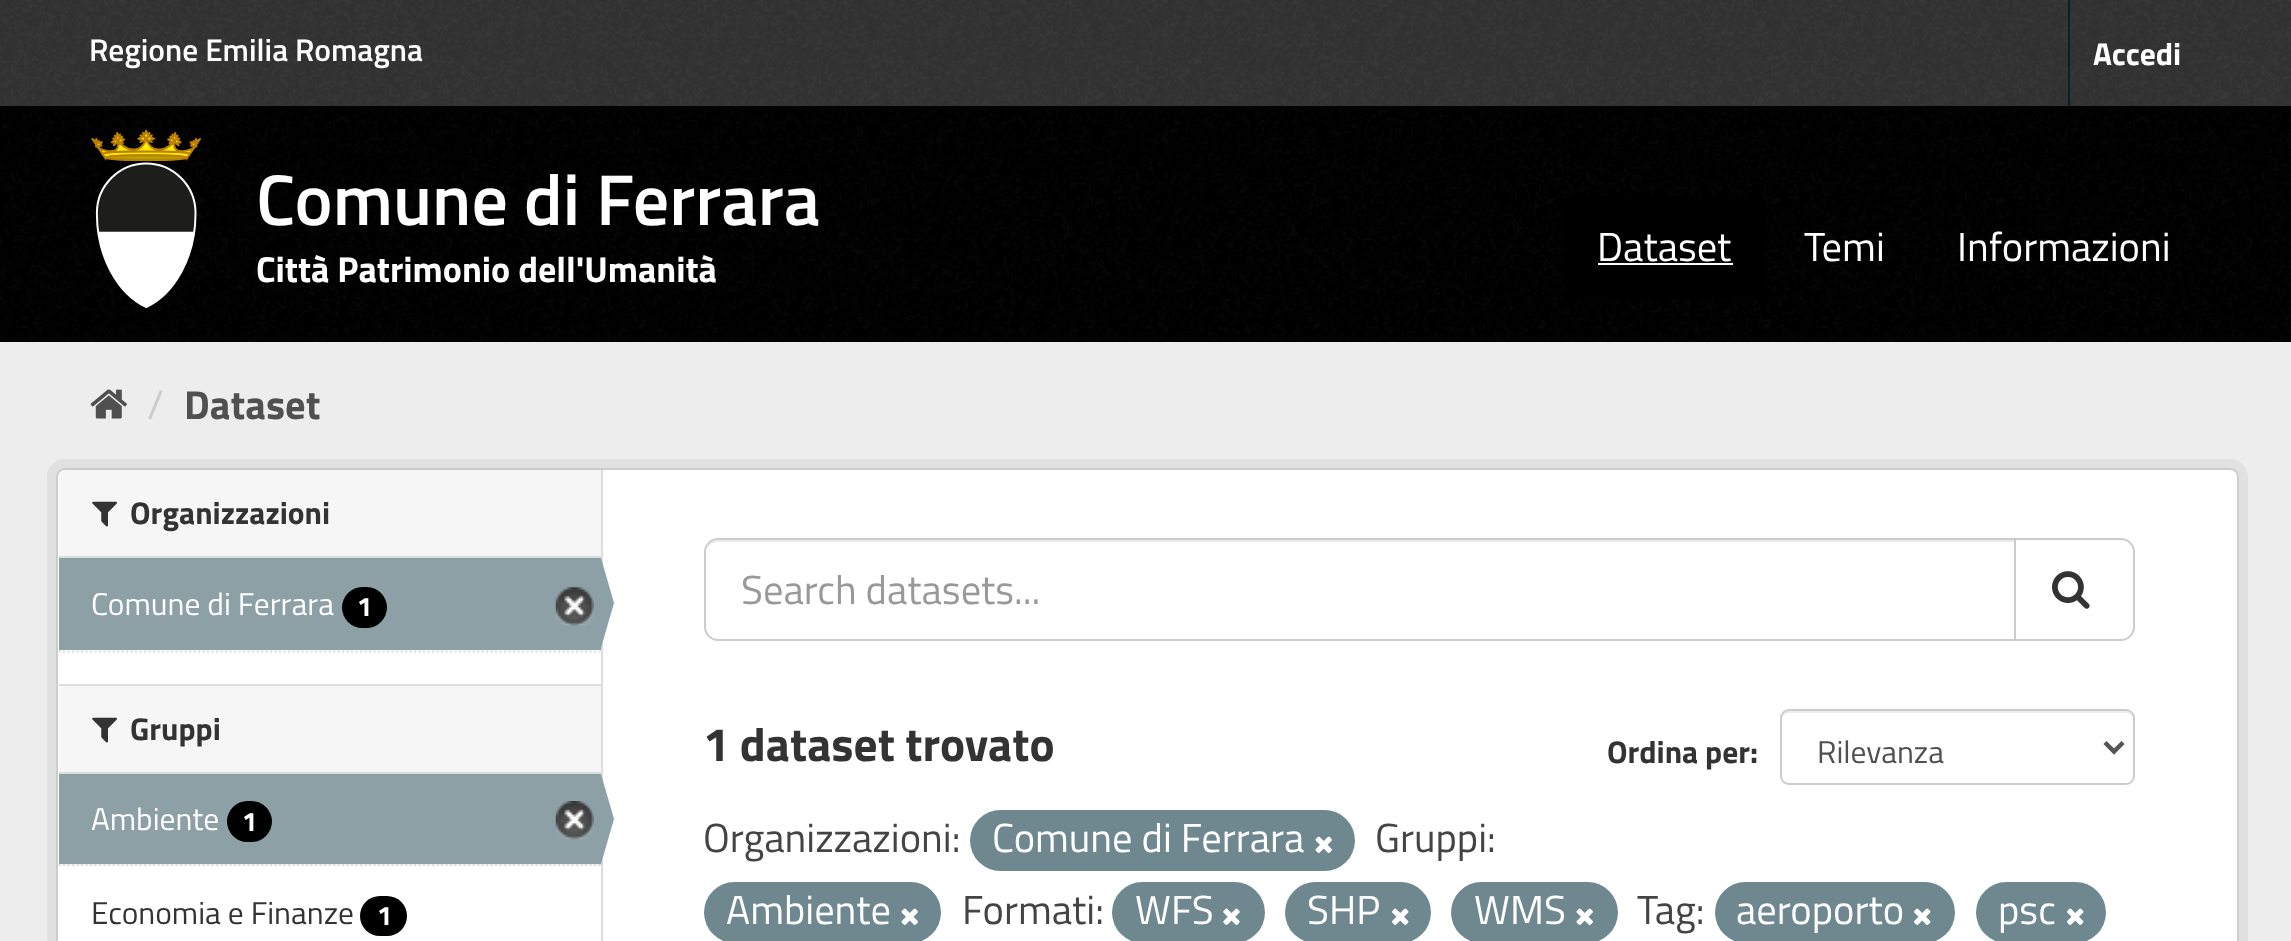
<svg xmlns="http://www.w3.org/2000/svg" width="2291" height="941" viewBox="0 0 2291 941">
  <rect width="100%" height="100%" fill="#333333"/>
  <image x="0" y="0" width="2291" height="105" href="img1.png"/>
  <text x="89" y="61" font-family="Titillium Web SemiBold" font-size="31.5" font-weight="600" fill="#ffffff">Regione Emilia Romagna</text>
  <rect x="2068" y="0" width="2" height="106" fill="#00232e"/>
  <text x="2093" y="65" font-family="Titillium Web" font-size="31.5" font-weight="bold" fill="#ffffff">Accedi</text>
  <rect x="0" y="106" width="2291" height="236" fill="#000000"/>
  <image x="0" y="106" width="2291" height="236" href="img2.png"/>
  <image x="91" y="129" width="110" height="179" href="img3.png"/>
  <text x="256" y="225" font-family="Titillium Web SemiBold" font-size="72" font-weight="600" fill="#ffffff">Comune di Ferrara</text>
  <text x="256" y="282" font-family="Titillium Web" font-size="36" font-weight="bold" fill="#ffffff">Città Patrimonio dell'Umanità</text>
  <rect x="1564" y="196" width="202" height="103" rx="9" fill="#000000"/>
  <text x="1597" y="261" font-family="Titillium Web" font-size="40.5" fill="#ffffff">Dataset</text>
  <rect x="1598" y="263" width="135" height="2" fill="#ffffff"/>
  <text x="1804" y="261" font-family="Titillium Web" font-size="40.5" fill="#ffffff">Temi</text>
  <text x="1957" y="261" font-family="Titillium Web" font-size="40.5" fill="#ffffff">Informazioni</text>
  <rect x="0" y="342" width="2291" height="599" fill="#ededed"/>
  <image x="90" y="389" width="37" height="30" href="img4.png"/>
  <text x="147" y="419" font-family="Titillium Web" font-size="40.5" fill="#cccccc">/</text>
  <text x="184" y="419" font-family="Titillium Web" font-size="40.5" font-weight="bold" fill="#505050">Dataset</text>
  <rect x="51.5" y="463.5" width="2192" height="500" rx="13.5" fill="none" stroke="#e1e1e1" stroke-width="9"/>
  <rect x="57" y="469" width="2181" height="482" rx="8" fill="#ffffff" stroke="#cccccc" stroke-width="2"/>
  <path d="M66 470H601V558H59V477C59 473 62 470 66 470Z" fill="#f6f6f6"/>
  <rect x="59" y="556" width="542" height="2" fill="#dddddd"/>
  <image x="92" y="501" width="25" height="26" href="img5.png"/>
  <text x="130" y="524" font-family="Titillium Web" font-size="31.5" font-weight="bold" fill="#333333">Organizzazioni</text>
  <rect x="59" y="558" width="542" height="92" fill="#8ca0a6"/>
  <text x="91" y="615" font-family="Titillium Web" font-size="31.5" fill="#ffffff">Comune di Ferrara</text>
  <rect x="342" y="587" width="45" height="41" rx="20.5" fill="#000000"/>
  <text x="357" y="616" font-family="Titillium Web" font-size="27" font-weight="bold" fill="#ffffff">1</text>
  <image x="555" y="587" width="39" height="39" href="img6.png"/>
  <rect x="601" y="470" width="2" height="471" fill="#dddddd"/>
  <path d="M601 648V558L614 603Z" fill="#8ca0a6"/>
  <path d="M58.5 651.5H601" fill="none" stroke="#dddddd" stroke-width="2.2" stroke-dasharray="2.25 2.25"/>
  <rect x="59" y="686" width="542" height="86" fill="#f6f6f6"/>
  <rect x="59" y="684" width="542" height="2" fill="#dddddd"/>
  <rect x="59" y="772" width="542" height="2" fill="#dddddd"/>
  <image x="92" y="717" width="25" height="26" href="img5.png"/>
  <text x="130" y="740" font-family="Titillium Web" font-size="31.5" font-weight="bold" fill="#333333">Gruppi</text>
  <rect x="60" y="864" width="541" height="2" fill="#f6f6f6"/>
  <path d="M58.5 865H601" fill="none" stroke="#dddddd" stroke-width="2.2" stroke-dasharray="2.25 2.25"/>
  <rect x="59" y="774" width="542" height="90" fill="#8ca0a6"/>
  <text x="91" y="830" font-family="Titillium Web" font-size="31.5" fill="#ffffff">Ambiente</text>
  <rect x="227" y="801" width="45" height="41" rx="20.5" fill="#000000"/>
  <text x="242" y="831" font-family="Titillium Web" font-size="27" font-weight="bold" fill="#ffffff">1</text>
  <image x="555" y="801" width="39" height="39" href="img7.png"/>
  <path d="M601 864V774L614 819Z" fill="#8ca0a6"/>
  <text x="91" y="924" font-family="Titillium Web" font-size="31.5" fill="#333333">Economia e Finanze</text>
  <rect x="360" y="896" width="47" height="40" rx="20" fill="#000000"/>
  <text x="377" y="925" font-family="Titillium Web" font-size="27" font-weight="bold" fill="#ffffff">1</text>
  <path d="M718 542H2014V540H718C713 540 708 544 707 549C709 545 714 542 718 542Z" fill="#ececec"/>
  <path d="M718 539H2015V640H718C711 640 705 634 705 627V552C705 545 711 539 718 539Z" fill="none" stroke="#cccccc" stroke-width="2"/>
  <text x="741" y="604" font-family="Titillium Web" font-size="40.5" fill="#999999">Search datasets...</text>
  <path d="M2015 539H2121C2128 539 2134 545 2134 552V627C2134 634 2128 640 2121 640H2015Z" fill="#ffffff" stroke="#cccccc" stroke-width="2"/>
  <image x="2052" y="571" width="38" height="38" href="img8.png"/>
  <text x="703" y="761" font-family="Titillium Web" font-size="47.25" font-weight="bold" fill="#333333">1 dataset trovato</text>
  <text x="1607" y="763" font-family="Titillium Web" font-size="31.5" font-weight="bold" fill="#333333">Ordina per:</text>
  <path d="M1789 713H2126C2130 713 2133 716 2133 720C2133 716 2131 711 2126 711H1788C1783 712 1782 716 1782 720C1782 716 1785 713 1789 713Z" fill="#ececec"/>
  <rect x="1781" y="710" width="353" height="74" rx="8" fill="none" stroke="#cccccc" stroke-width="2"/>
  <path d="M2105 742.5L2114 751.5L2123 742.5" fill="none" stroke="#555555" stroke-width="4.5"/>
  <text x="1817" y="763" font-family="Titillium Web" font-size="31.5" fill="#505050">Rilevanza</text>
  <text x="703" y="852" font-family="Titillium Web" font-size="40.5" fill="#444444">Organizzazioni:</text>
  <rect x="970" y="810" width="385" height="61" rx="30.5" fill="#6f8890"/>
  <text x="992" y="852" font-family="Titillium Web" font-size="40.5" fill="#ffffff">Comune di Ferrara</text>
  <image x="1315" y="836" width="17" height="17" href="img9.png"/>
  <text x="1375" y="852" font-family="Titillium Web" font-size="40.5" fill="#444444">Gruppi:</text>
  <rect x="704" y="882" width="237" height="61" rx="30.5" fill="#6f8890"/>
  <text x="726" y="924" font-family="Titillium Web" font-size="40.5" fill="#ffffff">Ambiente</text>
  <image x="901" y="908" width="17" height="17" href="img9.png"/>
  <text x="962" y="924" font-family="Titillium Web" font-size="40.5" fill="#444444">Formati:</text>
  <rect x="1112" y="882" width="153" height="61" rx="30.5" fill="#6f8890"/>
  <text x="1135" y="924" font-family="Titillium Web" font-size="40.5" fill="#ffffff">WFS</text>
  <image x="1223" y="908" width="17" height="17" href="img10.png"/>
  <rect x="1285" y="882" width="146" height="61" rx="30.5" fill="#6f8890"/>
  <text x="1307" y="924" font-family="Titillium Web" font-size="40.5" fill="#ffffff">SHP</text>
  <image x="1392" y="908" width="17" height="17" href="img11.png"/>
  <rect x="1451" y="882" width="167" height="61" rx="30.5" fill="#6f8890"/>
  <text x="1474" y="924" font-family="Titillium Web" font-size="40.5" fill="#ffffff">WMS</text>
  <image x="1576" y="908" width="17" height="17" href="img9.png"/>
  <text x="1637" y="924" font-family="Titillium Web" font-size="40.5" fill="#444444">Tag:</text>
  <rect x="1715" y="882" width="240" height="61" rx="30.5" fill="#6f8890"/>
  <text x="1736" y="924" font-family="Titillium Web" font-size="40.5" fill="#ffffff">aeroporto</text>
  <image x="1914" y="908" width="17" height="17" href="img11.png"/>
  <rect x="1976" y="882" width="130" height="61" rx="30.5" fill="#6f8890"/>
  <text x="1998" y="924" font-family="Titillium Web" font-size="40.5" fill="#ffffff">psc</text>
  <image x="2067" y="908" width="17" height="17" href="img11.png"/>
</svg>
